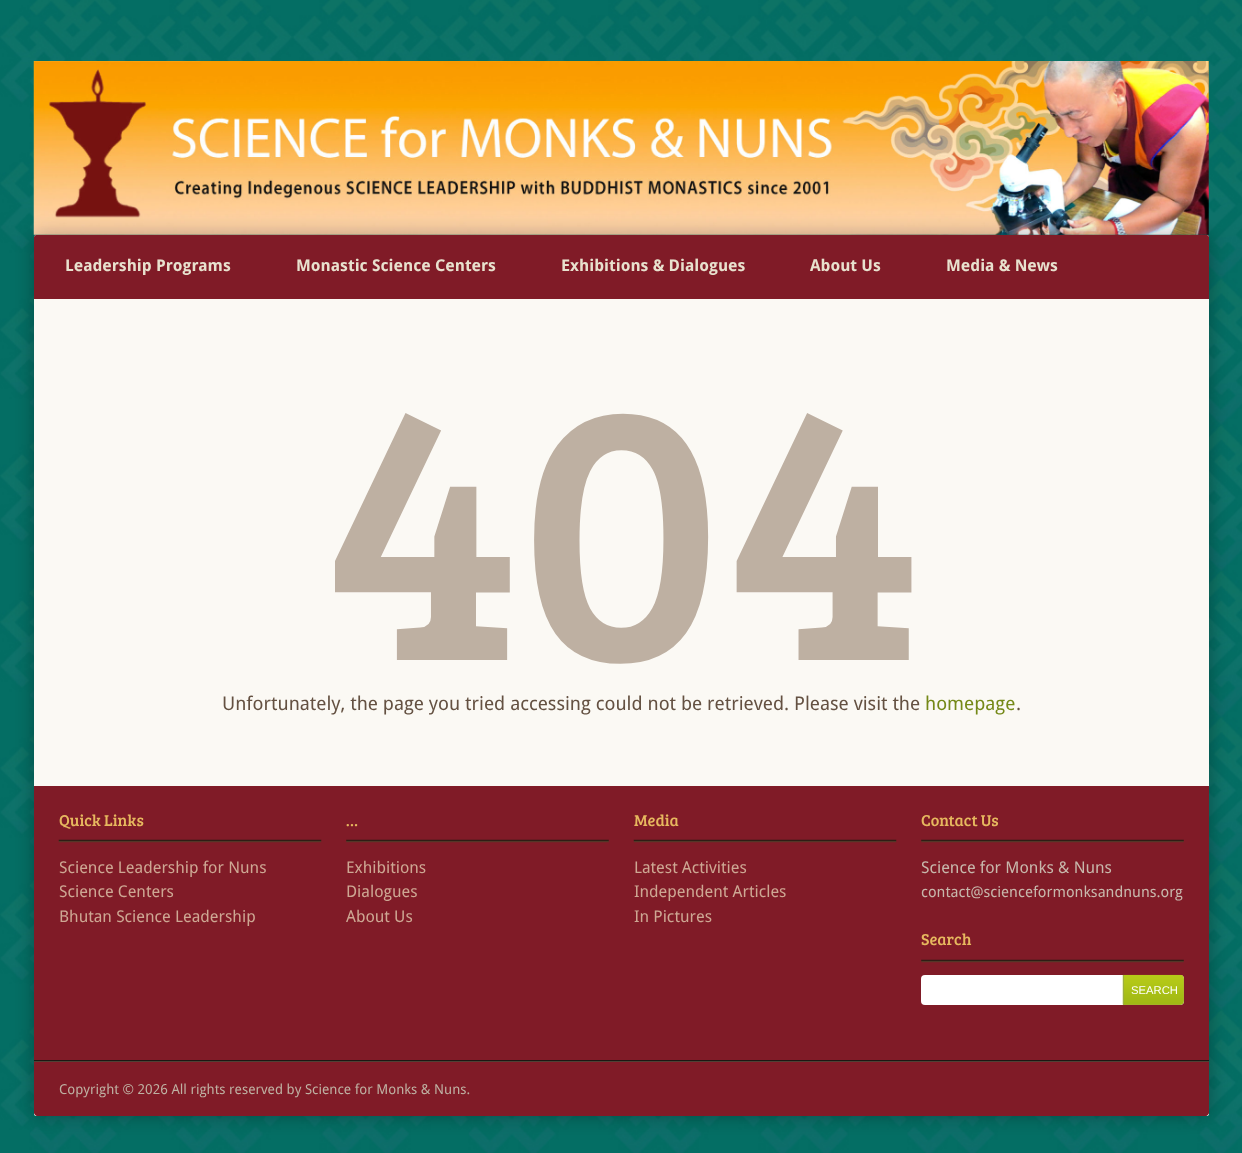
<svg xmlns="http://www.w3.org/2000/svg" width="1242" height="1153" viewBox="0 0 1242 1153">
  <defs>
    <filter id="blur1" x="-50%" y="-200%" width="200%" height="500%"><feGaussianBlur stdDeviation="9.5"/></filter>
  </defs>
  <rect width="100%" height="100%" fill="#ffffff"/>
  <image x="0" y="0" width="1242" height="1153" href="img1.png"/>
  <image x="33" y="61" width="1176" height="174" href="img2.png"/>
  <rect x="34" y="235" width="1175" height="881" rx="2.5" fill="#000000" fill-opacity="0.3" filter="url(#blur1)"/>
  <rect x="34" y="235" width="1175" height="881" rx="2.5" fill="#fbf9f4"/>
  <path d="M36.5 235H1206.5C1208 235 1209 236 1209 237.5V299H34V237.5C34 236 35 235 36.5 235Z" fill="#801b27"/>
  <text x="65" y="271" font-family="Droid Sans" font-size="16.25" font-weight="bold" fill="#e8e1ce">Leadership Programs</text>
  <text x="296" y="271" font-family="Droid Sans" font-size="16.25" font-weight="bold" fill="#e8e1ce">Monastic Science Centers</text>
  <text x="561" y="271" font-family="Droid Sans" font-size="16.25" font-weight="bold" fill="#e8e1ce">Exhibitions &amp; Dialogues</text>
  <text x="810" y="271" font-family="Droid Sans" font-size="16.25" font-weight="bold" fill="#e8e1ce">About Us</text>
  <text x="946" y="271" font-family="Droid Sans" font-size="16.25" font-weight="bold" fill="#e8e1ce">Media &amp; News</text>
  <text x="320" y="660" font-family="Bree Serif" font-size="375" fill="#beb0a2">404</text>
  <text x="222" y="710" font-family="Droid Sans" font-size="18.95" fill="#645142">Unfortunately, the page you tried accessing could not be retrieved. Please visit the</text>
  <text x="925" y="710" font-family="Droid Sans" font-size="18.95" fill="#758918">homepage</text>
  <text x="1016" y="710" font-family="Droid Sans" font-size="18.95" fill="#645142">.</text>
  <path d="M34 786H1209V1112C1209 1114 1207 1116 1205 1116H38C36 1116 34 1114 34 1112Z" fill="#801b27"/>
  <rect x="34" y="1060" width="1175" height="1" fill="#1c1713"/>
  <image x="58" y="839" width="264" height="4" href="img3.png"/>
  <text x="59" y="826" font-family="Bree Serif" font-size="16.25" fill="#e6b85f">Quick Links</text>
  <text x="59" y="873" font-family="Droid Sans" font-size="16.25" fill="#cda793">Science Leadership for Nuns</text>
  <text x="59" y="897" font-family="Droid Sans" font-size="16.25" fill="#cda793">Science Centers</text>
  <text x="59" y="922" font-family="Droid Sans" font-size="16.25" fill="#cda793">Bhutan Science Leadership</text>
  <image x="346" y="839" width="263" height="4" href="img4.png"/>
  <text x="346" y="826" font-family="Bree Serif" font-size="16.25" fill="#e6b85f">…</text>
  <text x="346" y="873" font-family="Droid Sans" font-size="16.25" fill="#cda793">Exhibitions</text>
  <text x="346" y="897" font-family="Droid Sans" font-size="16.25" fill="#cda793">Dialogues</text>
  <text x="346" y="922" font-family="Droid Sans" font-size="16.25" fill="#cda793">About Us</text>
  <image x="633" y="839" width="264" height="4" href="img3.png"/>
  <text x="634" y="826" font-family="Bree Serif" font-size="16.25" fill="#e6b85f">Media</text>
  <text x="634" y="873" font-family="Droid Sans" font-size="16.25" fill="#cda793">Latest Activities</text>
  <text x="634" y="897" font-family="Droid Sans" font-size="16.25" fill="#cda793">Independent Articles</text>
  <text x="634" y="922" font-family="Droid Sans" font-size="16.25" fill="#cda793">In Pictures</text>
  <image x="921" y="839" width="263" height="4" href="img4.png"/>
  <text x="921" y="826" font-family="Bree Serif" font-size="16.25" fill="#e6b85f">Contact Us</text>
  <text x="921" y="873" font-family="Droid Sans" font-size="16.25" fill="#c7b7ab">Science for Monks &amp; Nuns</text>
  <text x="921" y="897" font-family="Droid Sans" font-size="15" fill="#c7b7ab">contact@scienceformonksandnuns.org</text>
  <image x="921" y="959" width="263" height="4" href="img4.png"/>
  <text x="921" y="945" font-family="Bree Serif" font-size="16.25" fill="#e6b85f">Search</text>
  <rect x="921" y="975" width="263" height="30" rx="4" fill="#ffffff"/>
  <path d="M1123 975H1180C1182 975 1184 977 1184 979V1001C1184 1003 1182 1005 1180 1005H1123Z" fill="#a7b03d"/>
  <image x="1122" y="974" width="62" height="31" href="img5.png"/>
  <rect x="1123" y="975" width="1" height="30" fill="#9daf44"/>
  <text x="1131" y="994" font-family="Liberation Sans" font-size="11.25" fill="#ffffff">SEARCH</text>
  <path d="M34 1061H1209V1112C1209 1114 1207 1116 1205 1116H38C36 1116 34 1114 34 1112Z" fill="#801b27"/>
  <rect x="34" y="1061" width="1175" height="1" fill="#4f4135"/>
  <text x="59" y="1094" font-family="Droid Sans" font-size="13.75" fill="#beb0a2">Copyright © 2026 All rights reserved by Science for Monks &amp; Nuns.</text>
</svg>
